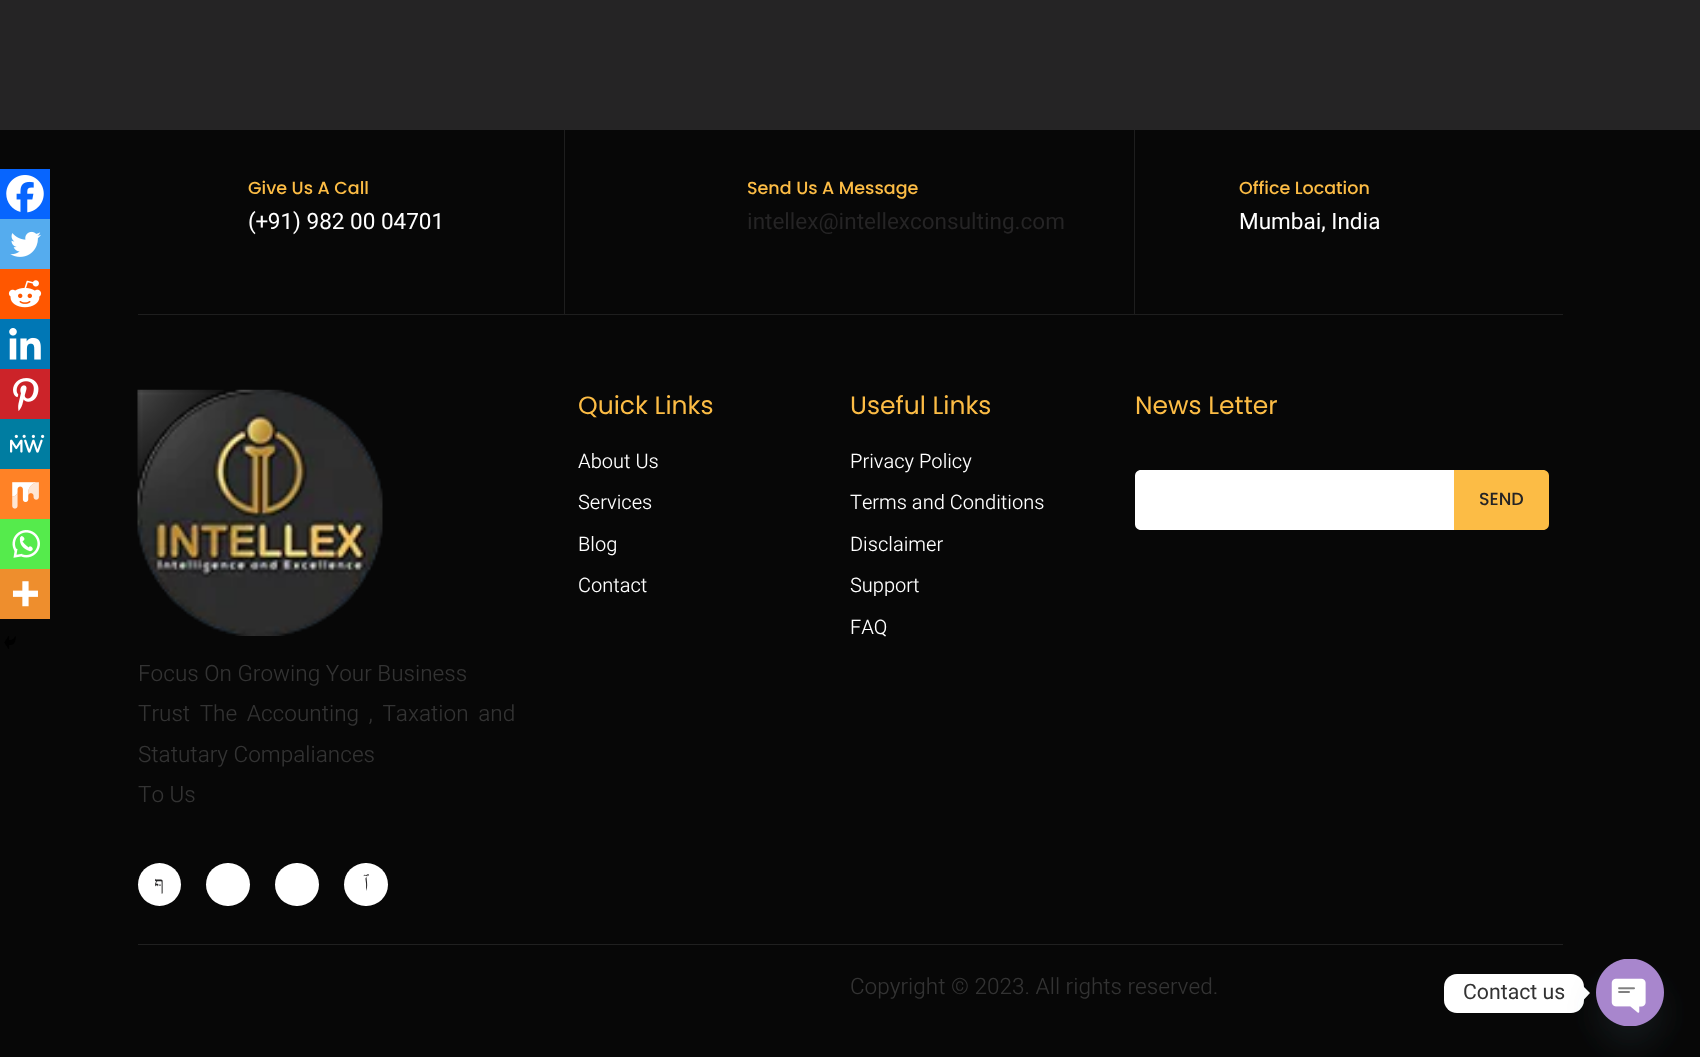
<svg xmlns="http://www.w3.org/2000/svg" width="1700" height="1057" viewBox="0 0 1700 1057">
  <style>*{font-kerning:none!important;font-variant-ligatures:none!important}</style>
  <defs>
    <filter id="blur1" x="-50%" y="-200%" width="200%" height="500%"><feGaussianBlur stdDeviation="15"/></filter>
  </defs>
  <rect width="100%" height="100%" fill="#252425"/>
  <rect x="0" y="130" width="1700" height="927" fill="#070707"/>
  <rect x="0" y="169" width="50" height="50" fill="#0765fe"/>
  <image x="6" y="175" width="38" height="38" href="img1.png"/>
  <rect x="0" y="219" width="50" height="50" fill="#55acee"/>
  <image x="10" y="231" width="31" height="26" href="img2.png"/>
  <rect x="0" y="269" width="50" height="50" fill="#ff5700"/>
  <image x="8" y="280" width="34" height="28" href="img3.png"/>
  <rect x="0" y="319" width="50" height="50" fill="#0077b5"/>
  <image x="9" y="328" width="32" height="32" href="img4.png"/>
  <rect x="0" y="369" width="50" height="50" fill="#cc2329"/>
  <image x="13" y="378" width="26" height="33" href="img5.png"/>
  <rect x="0" y="419" width="50" height="50" fill="#007da1"/>
  <image x="10" y="434" width="35" height="19" href="img6.png"/>
  <rect x="0" y="469" width="50" height="50" fill="#ff8226"/>
  <image x="12" y="482" width="27" height="27" href="img7.png"/>
  <rect x="0" y="519" width="50" height="50" fill="#55eb4c"/>
  <image x="12" y="530" width="28" height="28" href="img8.png"/>
  <rect x="0" y="569" width="50" height="50" fill="#ee8e2d"/>
  <image x="12" y="581" width="26" height="26" href="img9.png"/>
  <image x="4" y="636" width="12" height="13" href="img10.png"/>
  <path d="M565 130V315L564 314V130Z" fill="#1e1e1e"/>
  <path d="M565 315H138V314H564Z" fill="#eaeaea" fill-opacity="0.1"/>
  <text x="248" y="194" font-family="Poppins" font-size="17.5" font-weight="500" fill="#fcbc45">Give Us A Call</text>
  <text x="248" y="229" font-family="Heebo" font-size="22.5" fill="#ffffff">(+91) 982 00 04701</text>
  <path d="M1135 130V315L1134 314V130Z" fill="#1e1e1e"/>
  <path d="M1135 315H565V314H1134Z" fill="#eaeaea" fill-opacity="0.1"/>
  <text x="747" y="194" font-family="Poppins" font-size="17.5" font-weight="500" fill="#fcbc45">Send Us A Message</text>
  <text x="747" y="229" font-family="Heebo" font-size="22.5" fill="#252425">intellex@intellexconsulting.com</text>
  <rect x="1135" y="314" width="428" height="1" fill="#1e1e1e"/>
  <text x="1239" y="194" font-family="Poppins" font-size="17.5" font-weight="500" fill="#fcbc45">Office Location</text>
  <text x="1239" y="229" font-family="Heebo" font-size="22.5" fill="#ffffff">Mumbai, India</text>
  <text x="578" y="414" font-family="Poppins" font-size="25" fill="#fcbc45">Quick Links</text>
  <text x="578" y="468" font-family="Heebo" font-size="20" font-weight="300" fill="#ffffff">About Us</text>
  <text x="578" y="509" font-family="Heebo" font-size="20" font-weight="300" fill="#ffffff">Services</text>
  <text x="578" y="551" font-family="Heebo" font-size="20" font-weight="300" fill="#ffffff">Blog</text>
  <text x="578" y="592" font-family="Heebo" font-size="20" font-weight="300" fill="#ffffff">Contact</text>
  <text x="850" y="414" font-family="Poppins" font-size="25" fill="#fcbc45">Useful Links</text>
  <text x="850" y="468" font-family="Heebo" font-size="20" font-weight="300" fill="#ffffff">Privacy Policy</text>
  <text x="850" y="509" font-family="Heebo" font-size="20" font-weight="300" fill="#ffffff">Terms and Conditions</text>
  <text x="850" y="551" font-family="Heebo" font-size="20" font-weight="300" fill="#ffffff">Disclaimer</text>
  <text x="850" y="592" font-family="Heebo" font-size="20" font-weight="300" fill="#ffffff">Support</text>
  <text x="850" y="634" font-family="Heebo" font-size="20" font-weight="300" fill="#ffffff">FAQ</text>
  <text x="1135" y="414" font-family="Poppins" font-size="25" fill="#fcbc45">News Letter</text>
  <path d="M1141 470H1456V530H1141C1137.5 530 1135 527.5 1135 524V476C1135 472.5 1137.5 470 1141 470Z" fill="#ffffff"/>
  <path d="M1454 470H1543C1546.5 470 1549 472.5 1549 476V524C1549 527.5 1546.5 530 1543 530H1454Z" fill="#fcbc45"/>
  <text x="1479" y="505" font-family="Poppins" font-size="17.5" font-weight="500" fill="#252425">SEND</text>
  <image x="137" y="389" width="246" height="247" href="img11.png"/>
  <text x="138" y="681" font-family="Heebo" font-size="22.5" font-weight="300" fill="#333333">Focus On Growing Your Business</text>
  <text x="138" y="721" word-spacing="4" font-family="Heebo" font-size="22.5" font-weight="300" fill="#333333">Trust The Accounting , Taxation and</text>
  <text x="138" y="762" font-family="Heebo" font-size="22.5" font-weight="300" fill="#333333">Statutary Compaliances</text>
  <text x="138" y="802" font-family="Heebo" font-size="22.5" font-weight="300" fill="#333333">To Us</text>
  <circle cx="159.5" cy="884.5" r="21.5" fill="#ffffff"/>
  <text x="164" y="890" font-family="Liberation Serif" font-size="19" direction="rtl" fill="#252425">ףּ</text>
  <rect x="206" y="863" width="44" height="43" rx="21.5" fill="#ffffff"/>
  <rect x="275" y="863" width="44" height="43" rx="21.5" fill="#ffffff"/>
  <rect x="344" y="863" width="44" height="43" rx="21.5" fill="#ffffff"/>
  <text x="368" y="890" font-family="FreeSerif" font-size="19" direction="rtl" fill="#252425">ﭐ</text>
  <rect x="138" y="944" width="1425" height="1" fill="#202020"/>
  <text x="850" y="994" font-family="Heebo" font-size="22.5" font-weight="300" fill="#333333">Copyright © 2023. All rights reserved.</text>
  <rect x="1444" y="974" width="140" height="39" rx="13" fill="#ffffff"/>
  <text x="1463" y="999" font-family="Roboto" font-size="21.25" fill="#333333">Contact us</text>
  <path d="M1584 999.5V987L1590 993Z" fill="#ffffff"/>
  <rect x="1596" y="979" width="68" height="67" rx="33.5" fill="#49687e" fill-opacity="0.16" filter="url(#blur1)"/>
  <image x="1596" y="959" width="68" height="67" href="img12.png"/>
</svg>
